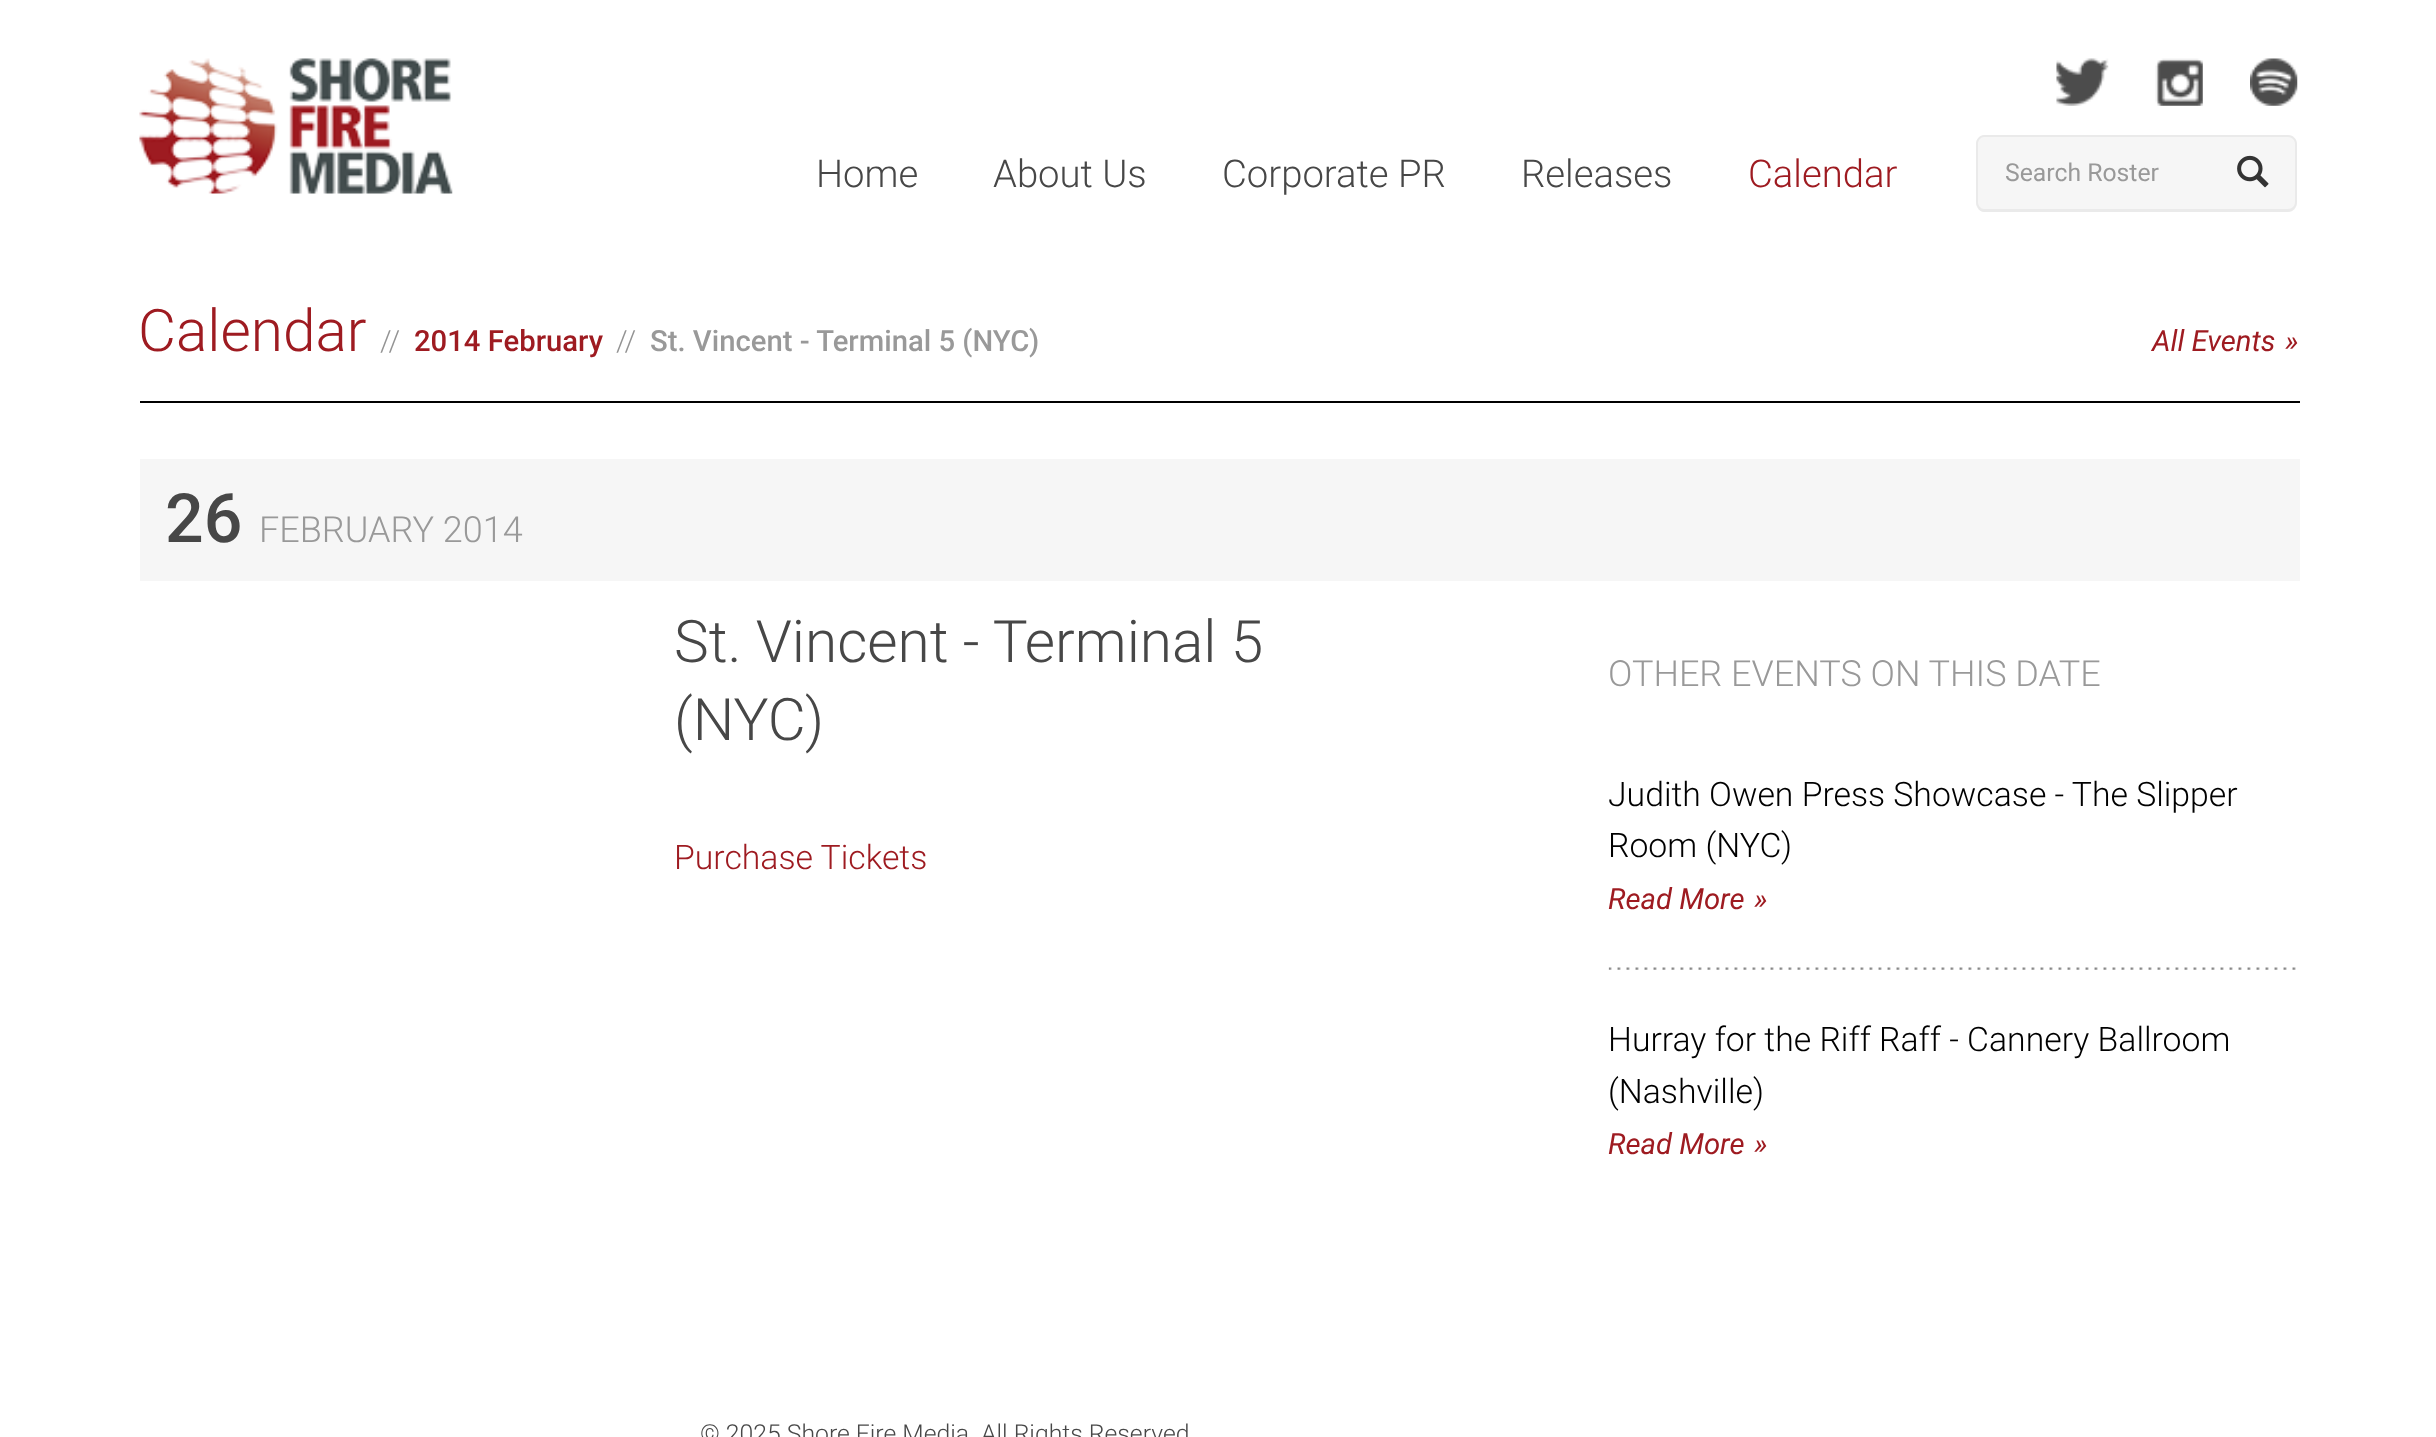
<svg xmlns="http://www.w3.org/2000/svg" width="2436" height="1437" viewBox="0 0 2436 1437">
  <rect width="100%" height="100%" fill="#ffffff"/>
  <image x="139" y="58" width="314" height="136" href="img1.png"/>
  <text x="816" y="187" font-family="Roboto" font-size="38.25" font-weight="300" fill="#474747">Home</text>
  <text x="993" y="187" font-family="Roboto" font-size="38.25" font-weight="300" fill="#474747">About Us</text>
  <text x="1222" y="187" font-family="Roboto" font-size="38.25" font-weight="300" fill="#474747">Corporate PR</text>
  <text x="1521" y="187" font-family="Roboto" font-size="38.25" font-weight="300" fill="#474747">Releases</text>
  <text x="1748" y="187" font-family="Roboto" font-size="38.25" font-weight="300" fill="#9e1b21">Calendar</text>
  <image x="2056" y="58" width="53" height="48" href="img2.png"/>
  <image x="2155" y="58" width="48" height="48" href="img3.png"/>
  <image x="2250" y="58" width="48" height="48" href="img4.png"/>
  <path d="M1985 135H2210V212H1985C1980 212 1976 208 1976 203V144C1976 139 1980 135 1985 135Z" fill="#f6f6f6"/>
  <path d="M1984 135H2210V212H1984C1980 212 1976 207 1976 202V144C1976 139 1980 135 1984 135ZM1984 137H2210V209H1984C1981 209 1978 206 1978 202V144C1978 140 1981 137 1984 137Z" fill="#eaeaea" fill-rule="evenodd"/>
  <text x="2005" y="181" font-family="Roboto" font-size="24.75" fill="#999999">Search Roster</text>
  <path d="M2210 135H2288C2293 135 2297 139 2297 144V203C2297 208 2293 212 2288 212H2210Z" fill="#f6f6f6"/>
  <path d="M2210 135H2288C2293 135 2297 139 2297 144V202C2297 207 2293 212 2288 212H2210ZM2210 137H2288C2292 137 2295 140 2295 144V202C2295 206 2292 209 2288 209H2210Z" fill="#eaeaea" fill-rule="evenodd"/>
  <image x="2237" y="155" width="32" height="33" href="img5.png"/>
  <rect x="140" y="401" width="2160" height="2" fill="#000000"/>
  <text x="138" y="351" font-family="Roboto" font-size="58.5" font-weight="300" fill="#9e1b21">Calendar</text>
  <text x="380" y="351" font-family="Roboto" font-size="29.25" font-weight="300" fill="#939393">//</text>
  <text x="414" y="351" font-family="Roboto" font-size="29.25" font-weight="500" fill="#9e1b21">2014 February</text>
  <text x="616" y="351" font-family="Roboto" font-size="29.25" font-weight="300" fill="#939393">//</text>
  <text x="650" y="351" font-family="Roboto" font-size="29.25" font-weight="500" fill="#999999">St. Vincent - Terminal 5 (NYC)</text>
  <text x="2152" y="351" font-family="Roboto" font-size="29.25" font-style="italic" fill="#9e1b21">All Events</text>
  <text x="2285" y="351" font-family="Roboto" font-size="29.25" font-style="italic" fill="#9e1b21">»</text>
  <rect x="140" y="459" width="2160" height="122" fill="#f6f6f6"/>
  <text x="165" y="542" font-family="Roboto" font-size="68" font-weight="500" fill="#474747">26</text>
  <text x="259" y="542" font-family="Roboto" font-size="36" font-weight="300" fill="#999999">FEBRUARY 2014</text>
  <text x="674" y="662" font-family="Roboto" font-size="58.5" font-weight="300" fill="#474747">St. Vincent - Terminal 5</text>
  <text x="674" y="740" font-family="Roboto" font-size="58.5" font-weight="300" fill="#474747">(NYC)</text>
  <text x="674" y="869" font-family="Roboto" font-size="33.75" font-weight="300" fill="#9e1b21">Purchase Tickets</text>
  <text x="1608" y="686" font-family="Roboto" font-size="36" font-weight="300" fill="#999999">OTHER EVENTS ON THIS DATE</text>
  <image x="1608" y="967" width="688" height="3" href="img6.png"/>
  <text x="1608" y="806" font-family="Roboto" font-size="33.75" font-weight="300" fill="#000000">Judith Owen Press Showcase - The Slipper</text>
  <text x="1608" y="857" font-family="Roboto" font-size="33.75" font-weight="300" fill="#000000">Room (NYC)</text>
  <text x="1608" y="909" font-family="Roboto" font-size="29.25" font-style="italic" fill="#9e1b21">Read More</text>
  <text x="1754" y="909" font-family="Roboto" font-size="29.25" font-style="italic" fill="#9e1b21">»</text>
  <text x="1608" y="1051" font-family="Roboto" font-size="33.75" font-weight="300" fill="#000000">Hurray for the Riff Raff - Cannery Ballroom</text>
  <text x="1608" y="1103" font-family="Roboto" font-size="33.75" font-weight="300" fill="#000000">(Nashville)</text>
  <text x="1608" y="1154" font-family="Roboto" font-size="29.25" font-style="italic" fill="#9e1b21">Read More</text>
  <text x="1754" y="1154" font-family="Roboto" font-size="29.25" font-style="italic" fill="#9e1b21">»</text>
  <text x="700" y="1442" font-family="Roboto" font-size="24.75" font-weight="300" fill="#474747">© 2025 Shore Fire Media. All Rights Reserved</text>
</svg>
